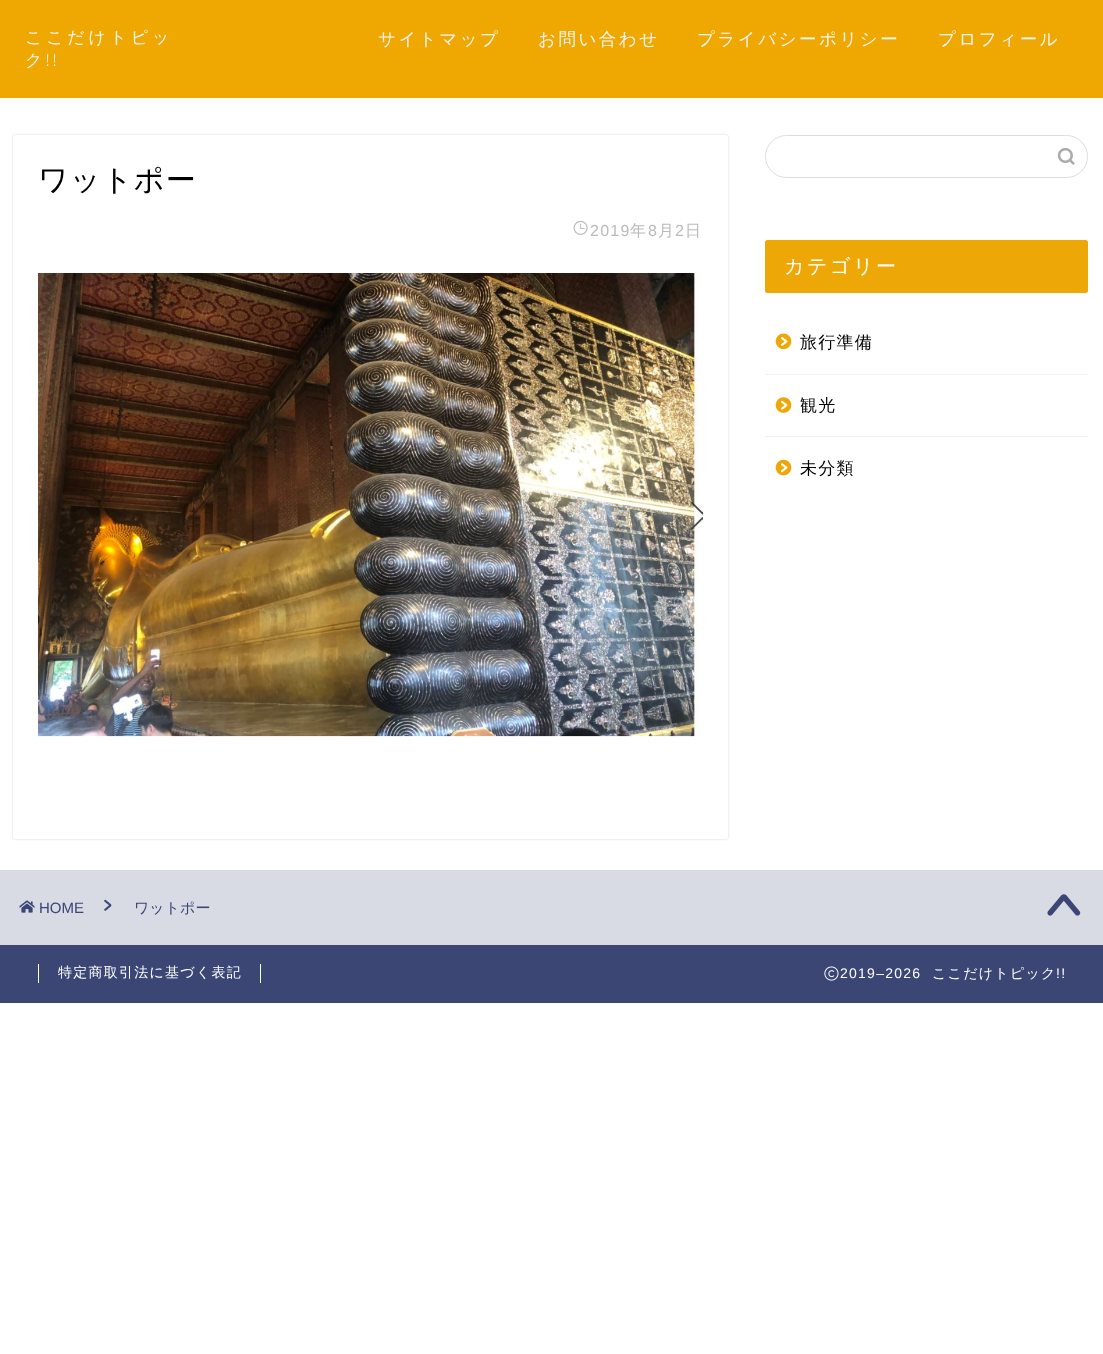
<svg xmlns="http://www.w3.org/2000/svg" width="1103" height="1354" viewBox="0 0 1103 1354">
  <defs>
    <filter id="blur1" x="-50%" y="-200%" width="200%" height="500%"><feGaussianBlur stdDeviation="1"/></filter>
  </defs>
  <rect width="100%" height="100%" fill="#ffffff"/>
  <rect x="0" y="0" width="1103" height="98" fill="#efa802"/>
  <text x="25" y="43" font-family="WenQuanYi Zen Hei" font-size="17" font-weight="500" letter-spacing="3.75" fill="#f4f4f4">ここだけトピッ</text>
  <text x="25" y="66" font-family="WenQuanYi Zen Hei" font-size="17" font-weight="500" letter-spacing="3.75" fill="#f4f4f4">ク</text>
  <text x="46" y="66" font-family="Quicksand" font-size="17" font-weight="300" letter-spacing="3.75" fill="#f4f4f4">!!</text>
  <text x="378" y="45" font-family="WenQuanYi Zen Hei" font-size="17.5" font-weight="500" letter-spacing="2.5" fill="#f4f4f4">サイトマップ</text>
  <text x="538" y="45" font-family="WenQuanYi Zen Hei" font-size="17.5" font-weight="500" letter-spacing="2.5" fill="#f4f4f4">お問い合わせ</text>
  <text x="697" y="45" font-family="WenQuanYi Zen Hei" font-size="17.5" font-weight="500" letter-spacing="2.5" fill="#f4f4f4">プライバシーポリシー</text>
  <text x="938" y="45" font-family="WenQuanYi Zen Hei" font-size="17.5" font-weight="500" letter-spacing="2.5" fill="#f4f4f4">プロフィール</text>
  <rect x="13" y="135" width="715" height="704" rx="2.5" fill="#000000" fill-opacity="0.18" filter="url(#blur1)"/>
  <rect x="13" y="135" width="715" height="704" rx="2.5" fill="#ffffff"/>
  <text x="38" y="190" font-family="WenQuanYi Zen Hei" font-size="30" font-weight="500" letter-spacing="1.25" fill="#000000">ワットポー</text>
  <image x="573" y="220" width="15" height="15" href="img1.png"/>
  <text x="590" y="236" font-family="Liberation Sans" font-size="16" letter-spacing="1.25" fill="#bbbbbb">2019</text>
  <text x="630" y="236" font-family="WenQuanYi Zen Hei" font-size="16" font-weight="500" letter-spacing="1.25" fill="#bbbbbb">年</text>
  <text x="648" y="236" font-family="Liberation Sans" font-size="16" letter-spacing="1.25" fill="#bbbbbb">8</text>
  <text x="658" y="236" font-family="WenQuanYi Zen Hei" font-size="16" font-weight="500" letter-spacing="1.25" fill="#bbbbbb">月</text>
  <text x="675" y="236" font-family="Liberation Sans" font-size="16" letter-spacing="1.25" fill="#bbbbbb">2</text>
  <text x="685" y="236" font-family="WenQuanYi Zen Hei" font-size="16" font-weight="500" letter-spacing="1.25" fill="#bbbbbb">日</text>
  <image x="38" y="273" width="665" height="464" href="img2.png"/>
  <rect x="765.5" y="135.5" width="322" height="42" rx="21" fill="none" stroke="#dddddd"/>
  <image x="1057" y="147" width="18" height="18" href="img3.png"/>
  <rect x="765" y="240" width="323" height="53" rx="2.5" fill="#eda807"/>
  <text x="784" y="273" font-family="WenQuanYi Zen Hei" font-size="20" font-weight="500" letter-spacing="2.5" fill="#ffffff">カテゴリー</text>
  <rect x="765" y="374" width="323" height="1" fill="#f2f2f2"/>
  <image x="775" y="333" width="17" height="17" href="img4.png"/>
  <text x="800" y="348" font-family="WenQuanYi Zen Hei" font-size="17" font-weight="500" letter-spacing="1.25" fill="#000000">旅行準備</text>
  <rect x="765" y="436" width="323" height="1" fill="#f2f2f2"/>
  <image x="775" y="397" width="17" height="16" href="img5.png"/>
  <text x="800" y="411" font-family="WenQuanYi Zen Hei" font-size="17" font-weight="500" letter-spacing="1.25" fill="#000000">観光</text>
  <image x="775" y="459" width="17" height="17" href="img6.png"/>
  <text x="800" y="474" font-family="WenQuanYi Zen Hei" font-size="17" font-weight="500" letter-spacing="1.25" fill="#000000">未分類</text>
  <rect x="0" y="870" width="1103" height="75" fill="#d8dae4"/>
  <image x="19" y="900" width="16" height="13" href="img7.png"/>
  <text x="39" y="913" font-family="Liberation Sans" font-size="15" fill="#3b4675">HOME</text>
  <image x="104" y="899" width="8" height="12" href="img8.png"/>
  <text x="134" y="913" font-family="WenQuanYi Zen Hei" font-size="15" font-weight="500" fill="#3b4675">ワットポー</text>
  <image x="1047" y="894" width="34" height="22" href="img9.png"/>
  <rect x="0" y="945" width="1103" height="58" fill="#3b4675"/>
  <rect x="260" y="964" width="1" height="19" fill="#ffffff"/>
  <rect x="38" y="964" width="1" height="19" fill="#ffffff"/>
  <text x="58" y="977" font-family="WenQuanYi Zen Hei" font-size="14" font-weight="500" letter-spacing="1.25" fill="#ffffff">特定商取引法に基づく表記</text>
  <image x="824" y="966" width="15" height="15" href="img10.png"/>
  <text x="840" y="978" font-family="Liberation Sans" font-size="14" letter-spacing="1.25" fill="#ffffff">2019–2026</text>
  <text x="932" y="978" font-family="WenQuanYi Zen Hei" font-size="14" font-weight="500" letter-spacing="1.25" fill="#ffffff">ここだけトピック</text>
  <text x="1056" y="978" font-family="Liberation Sans" font-size="14" letter-spacing="1.25" fill="#ffffff">!!</text>
</svg>
